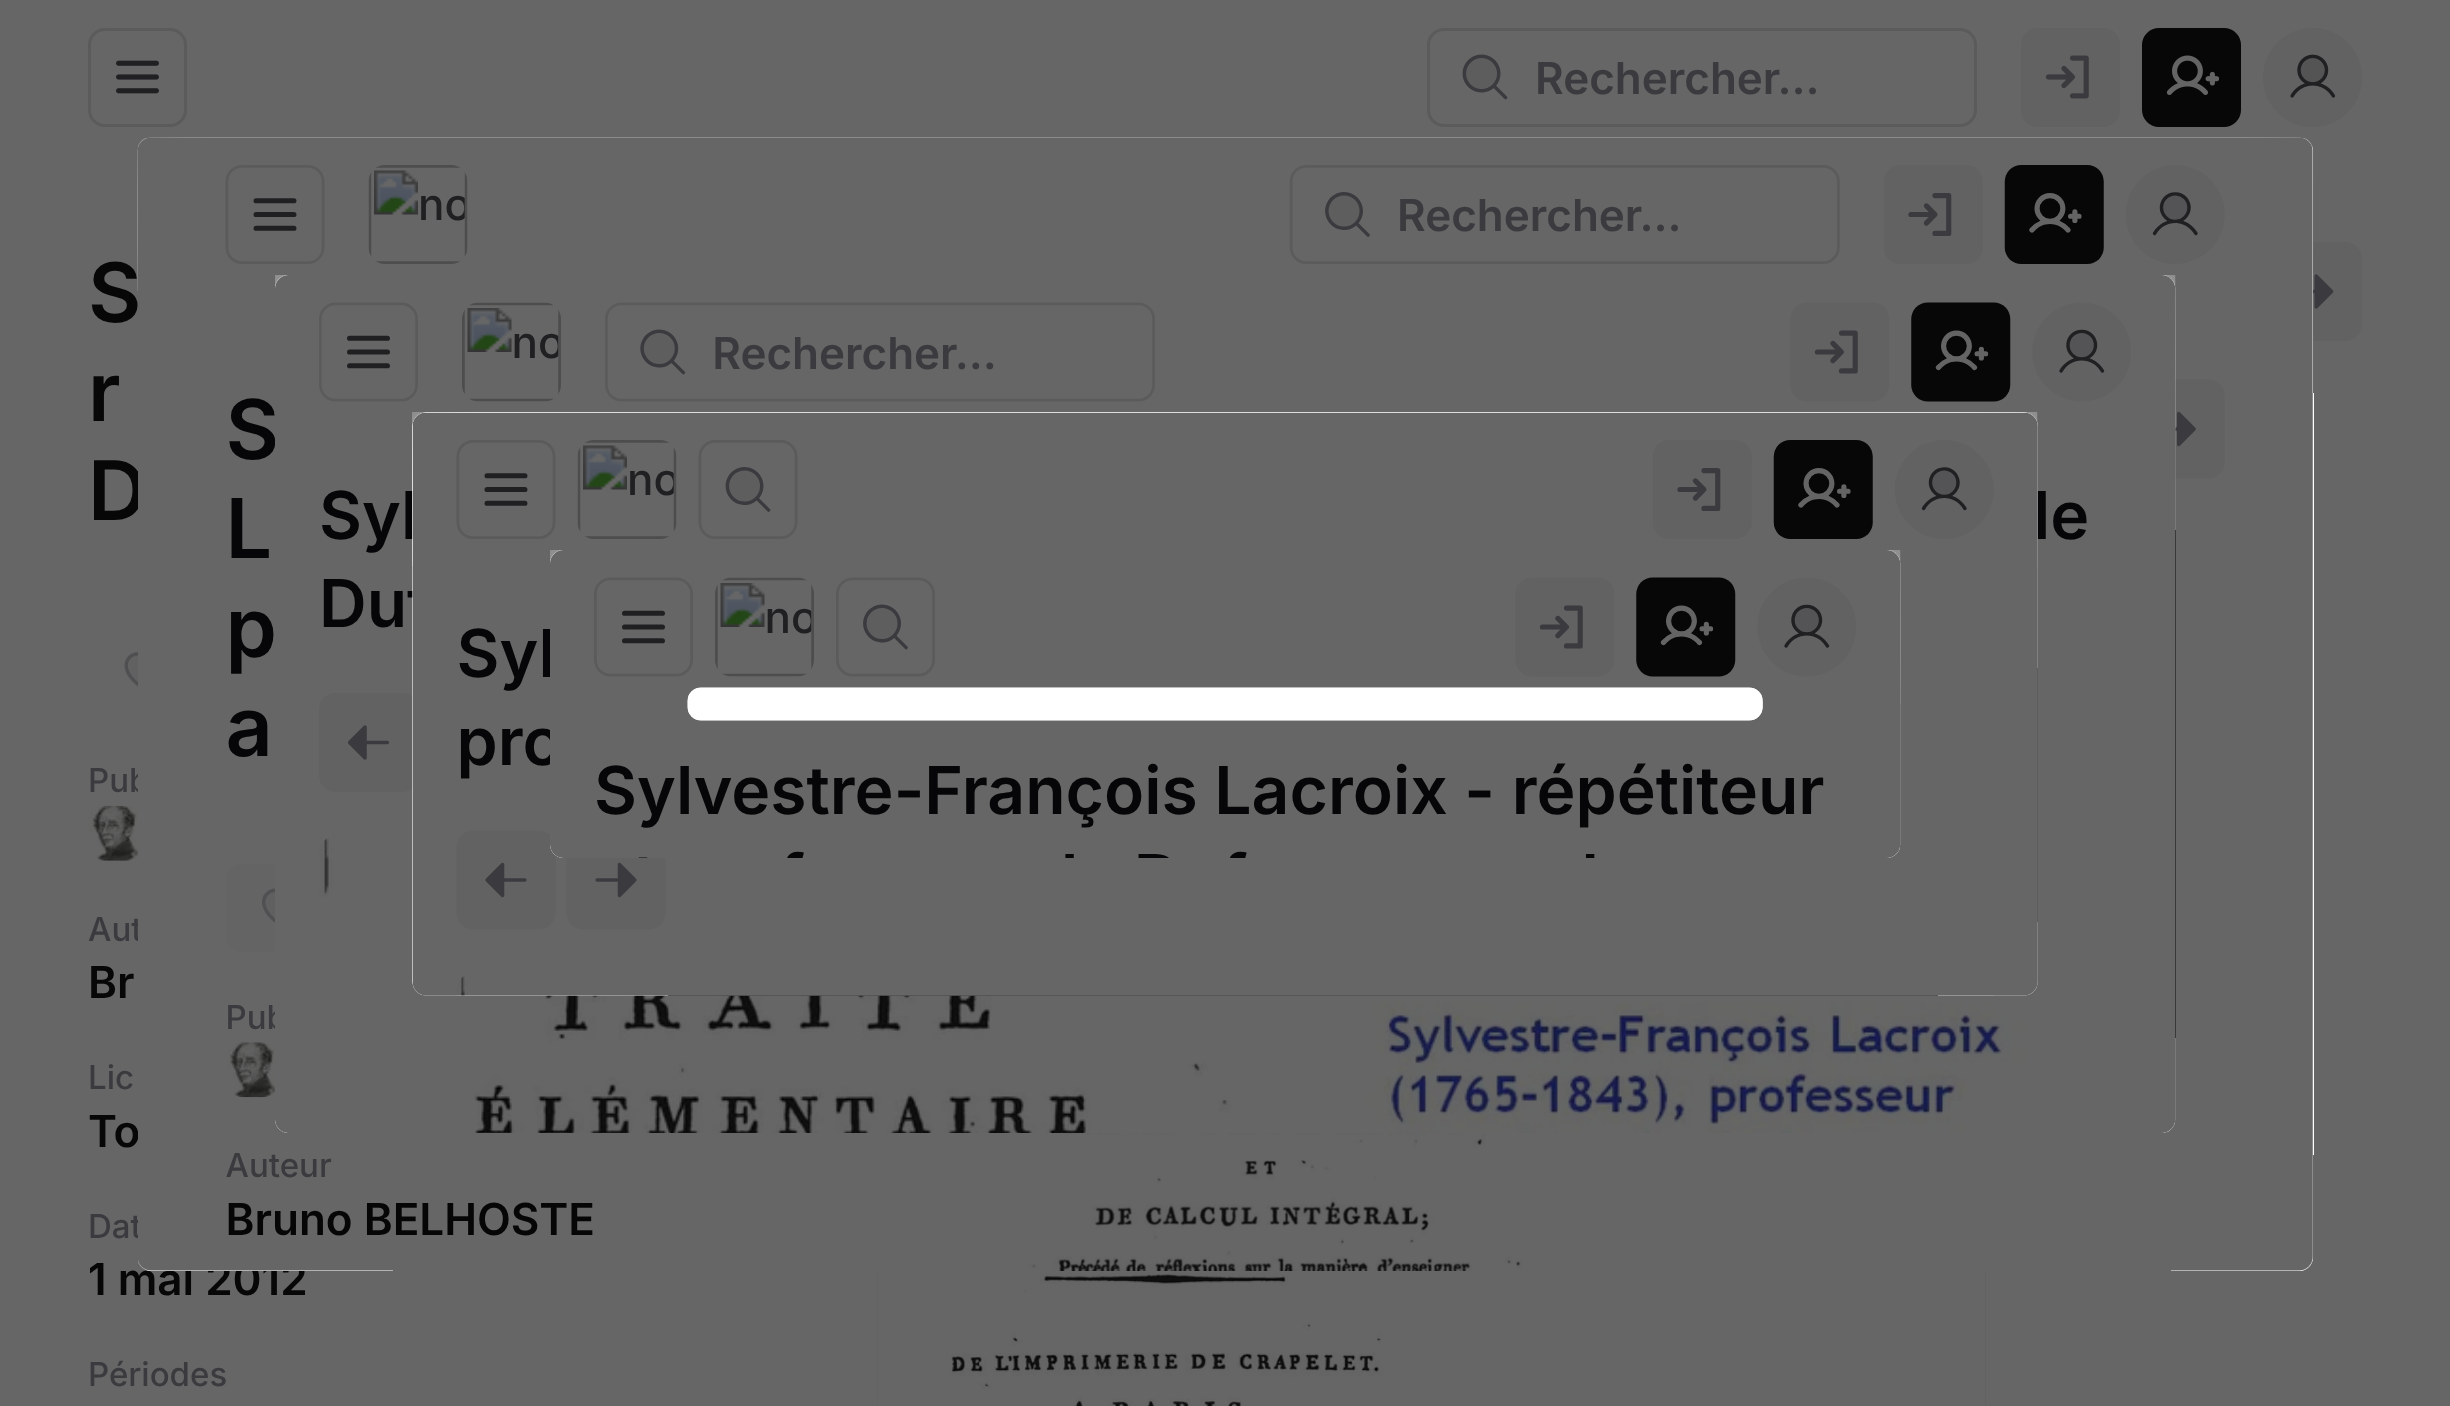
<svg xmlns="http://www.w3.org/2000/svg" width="2450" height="1406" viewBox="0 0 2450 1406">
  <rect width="100%" height="100%" fill="#666666"/>
  <rect x="89.5" y="29.5" width="96" height="96" rx="15.5" fill="none" stroke="#5b5b5c" stroke-width="3"/>
  <image x="116" y="60" width="43" height="34" href="img1.png"/>
  <rect x="1428.5" y="29.5" width="547" height="96" rx="15.5" fill="none" stroke="#5b5b5c" stroke-width="3"/>
  <image x="1462" y="54" width="46" height="46" href="img2.png"/>
  <text x="1535" y="94" font-family="Inter" font-size="44" font-weight="600" fill="#3b3b3f">Rechercher…</text>
  <rect x="2021" y="28" width="99" height="99" rx="17" fill="#626262"/>
  <image x="2045" y="55" width="44" height="44" href="img3.png"/>
  <rect x="2142" y="28" width="99" height="99" rx="17" fill="#070707"/>
  <image x="2166" y="55" width="53" height="40" href="img4.png"/>
  <circle cx="2312.5" cy="77.5" r="49.5" fill="#626262"/>
  <image x="2290" y="54" width="46" height="44" href="img5.png"/>
  <text x="88" y="322" font-family="Inter" font-size="82" font-weight="600" fill="#070708">S</text>
  <text x="88" y="421" font-family="Inter" font-size="82" font-weight="600" fill="#070708">r</text>
  <text x="88" y="520" font-family="Inter" font-size="82" font-weight="600" fill="#070708">D</text>
  <rect x="2263" y="242" width="99" height="99" rx="17" fill="#626262"/>
  <image x="2313" y="274" width="21" height="35" href="img6.png"/>
  <image x="124" y="652" width="14" height="35" href="img7.png"/>
  <text x="88" y="792" font-family="Inter" font-size="33" font-weight="500" fill="#3b3b3f">Pub</text>
  <rect x="88" y="806" width="55" height="55" rx="17" fill="#626262"/>
  <image x="88" y="805" width="50" height="56" href="img8.png"/>
  <text x="88" y="941" font-family="Inter" font-size="33" font-weight="500" fill="#3b3b3f">Aut</text>
  <text x="88" y="998" font-family="Inter" font-size="44" font-weight="600" fill="#070708">Br</text>
  <text x="88" y="1089" font-family="Inter" font-size="33" font-weight="500" fill="#3b3b3f">Lic</text>
  <text x="88" y="1147" font-family="Inter" font-size="44" font-weight="600" fill="#070708">To</text>
  <text x="88" y="1238" font-family="Inter" font-size="33" font-weight="500" fill="#3b3b3f">Dat</text>
  <text x="88" y="1295" font-family="Inter" font-size="44" font-weight="600" fill="#070708">1 mai 2012</text>
  <text x="88" y="1386" font-family="Inter" font-size="33" font-weight="500" fill="#3b3b3f">Périodes</text>
  <rect x="877" y="1271" width="1109" height="135" fill="#626262"/>
  <image x="877" y="1271" width="1108" height="135" href="img9.png"/>
  <rect x="138" y="138" width="2175" height="1133" rx="14" fill="#ffffff"/>
  <image x="137" y="137" width="2177" height="1134" href="img10.png"/>
</svg>
